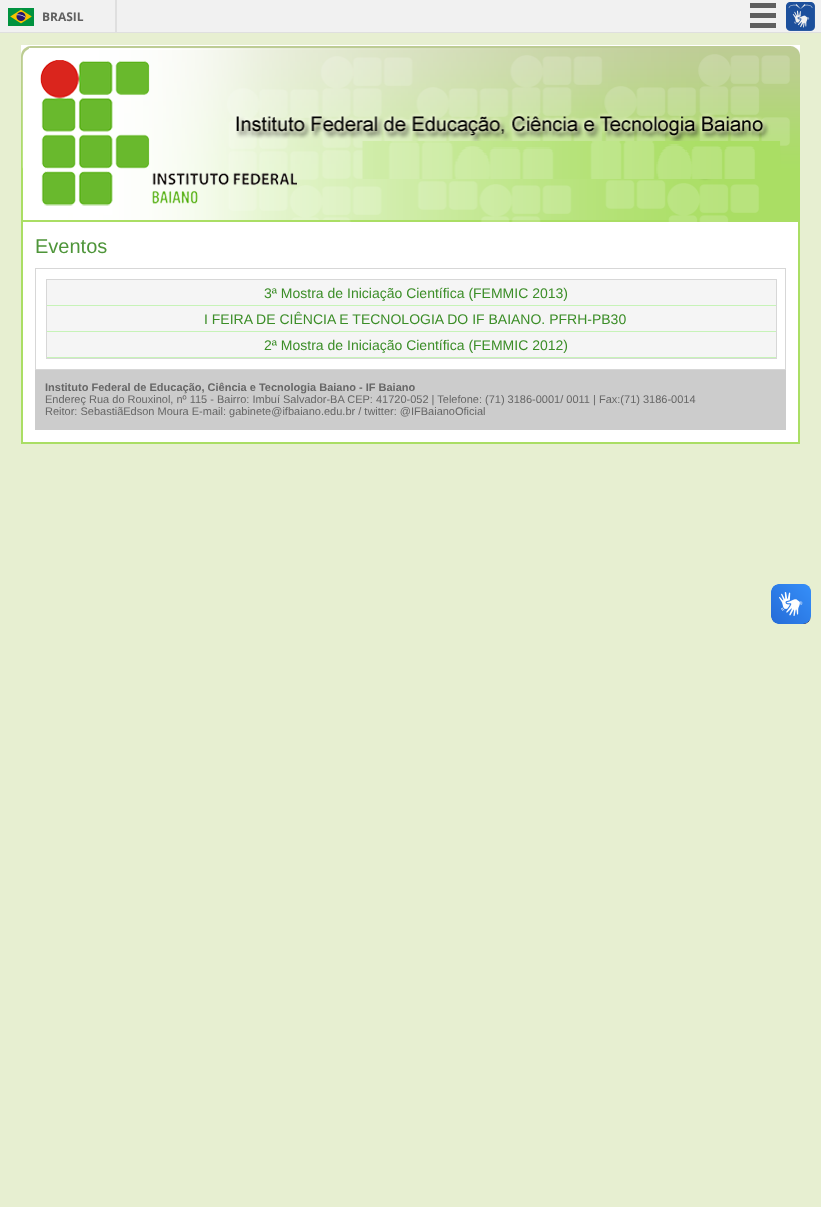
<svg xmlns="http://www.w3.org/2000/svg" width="821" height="1207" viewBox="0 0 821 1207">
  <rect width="100%" height="100%" fill="#e7efd1"/>
  <rect x="0" y="0" width="821" height="32" fill="#f1f1f1"/>
  <rect x="0" y="32" width="821" height="1" fill="#dfdfdf"/>
  <rect x="115" y="0" width="2" height="32" fill="#dfdfdf"/>
  <image x="8" y="8" width="26" height="18" href="img1.png"/>
  <text x="42" y="21" font-family="Open Sans" font-size="12" font-weight="bold" fill="#606060">BRASIL</text>
  <rect x="750" y="3" width="26" height="5" fill="#606060"/>
  <rect x="750" y="13" width="26" height="5" fill="#606060"/>
  <rect x="750" y="23" width="26" height="5" fill="#606060"/>
  <image x="786" y="2" width="29" height="29" href="img2.png"/>
  <rect x="21" y="45" width="779" height="397" fill="#ffffff"/>
  <image x="29" y="46" width="771" height="176" href="img3.png"/>
  <image x="21" y="46" width="319" height="177" href="img4.png"/>
  <rect x="798" y="222" width="2" height="222" fill="#aade64"/>
  <rect x="21" y="442" width="779" height="2" fill="#aade64"/>
  <rect x="21" y="222" width="2" height="222" fill="#aade64"/>
  <text x="35" y="253" font-family="Liberation Sans" font-size="20" fill="#4e9539">Eventos</text>
  <rect x="35.5" y="268.5" width="750" height="101" fill="none" stroke="#d7d7d7"/>
  <rect x="46.5" y="279.5" width="730" height="79" fill="none" stroke="#d7d7d7"/>
  <rect x="47" y="280" width="729" height="25" fill="#f5f5f5"/>
  <rect x="47" y="305" width="729" height="1" fill="#c7f3b8"/>
  <text x="264" y="298" font-family="Liberation Sans" font-size="14" fill="#3b8d27">3ª Mostra de Iniciação Científica (FEMMIC 2013)</text>
  <rect x="47" y="306" width="729" height="25" fill="#f5f5f5"/>
  <rect x="47" y="331" width="729" height="1" fill="#c7f3b8"/>
  <text x="204" y="324" font-family="Liberation Sans" font-size="14" fill="#3b8d27">I FEIRA DE CIÊNCIA E TECNOLOGIA DO IF BAIANO. PFRH-PB30</text>
  <rect x="47" y="332" width="729" height="25" fill="#f5f5f5"/>
  <rect x="47" y="357" width="729" height="1" fill="#c7f3b8"/>
  <text x="264" y="350" font-family="Liberation Sans" font-size="14" fill="#3b8d27">2ª Mostra de Iniciação Científica (FEMMIC 2012)</text>
  <rect x="35" y="370" width="751" height="60" fill="#cccccc"/>
  <text x="45" y="391" font-family="Liberation Sans" font-size="11" font-weight="bold" fill="#666666">Instituto Federal de Educação, Ciência e Tecnologia Baiano - IF Baiano</text>
  <text x="45" y="403" font-family="Liberation Sans" font-size="11" fill="#666666">Endereç Rua do Rouxinol, nº 115 - Bairro: Imbuí Salvador-BA CEP: 41720-052 | Telefone: (71) 3186-0001/ 0011 | Fax:(71) 3186-0014</text>
  <text x="45" y="415" font-family="Liberation Sans" font-size="11" fill="#666666">Reitor: SebastiãEdson Moura E-mail: gabinete@ifbaiano.edu.br / twitter: @IFBaianoOficial</text>
  <image x="771" y="584" width="40" height="40" href="img5.png"/>
  <image x="771" y="584" width="40" height="40" href="img6.png"/>
</svg>
